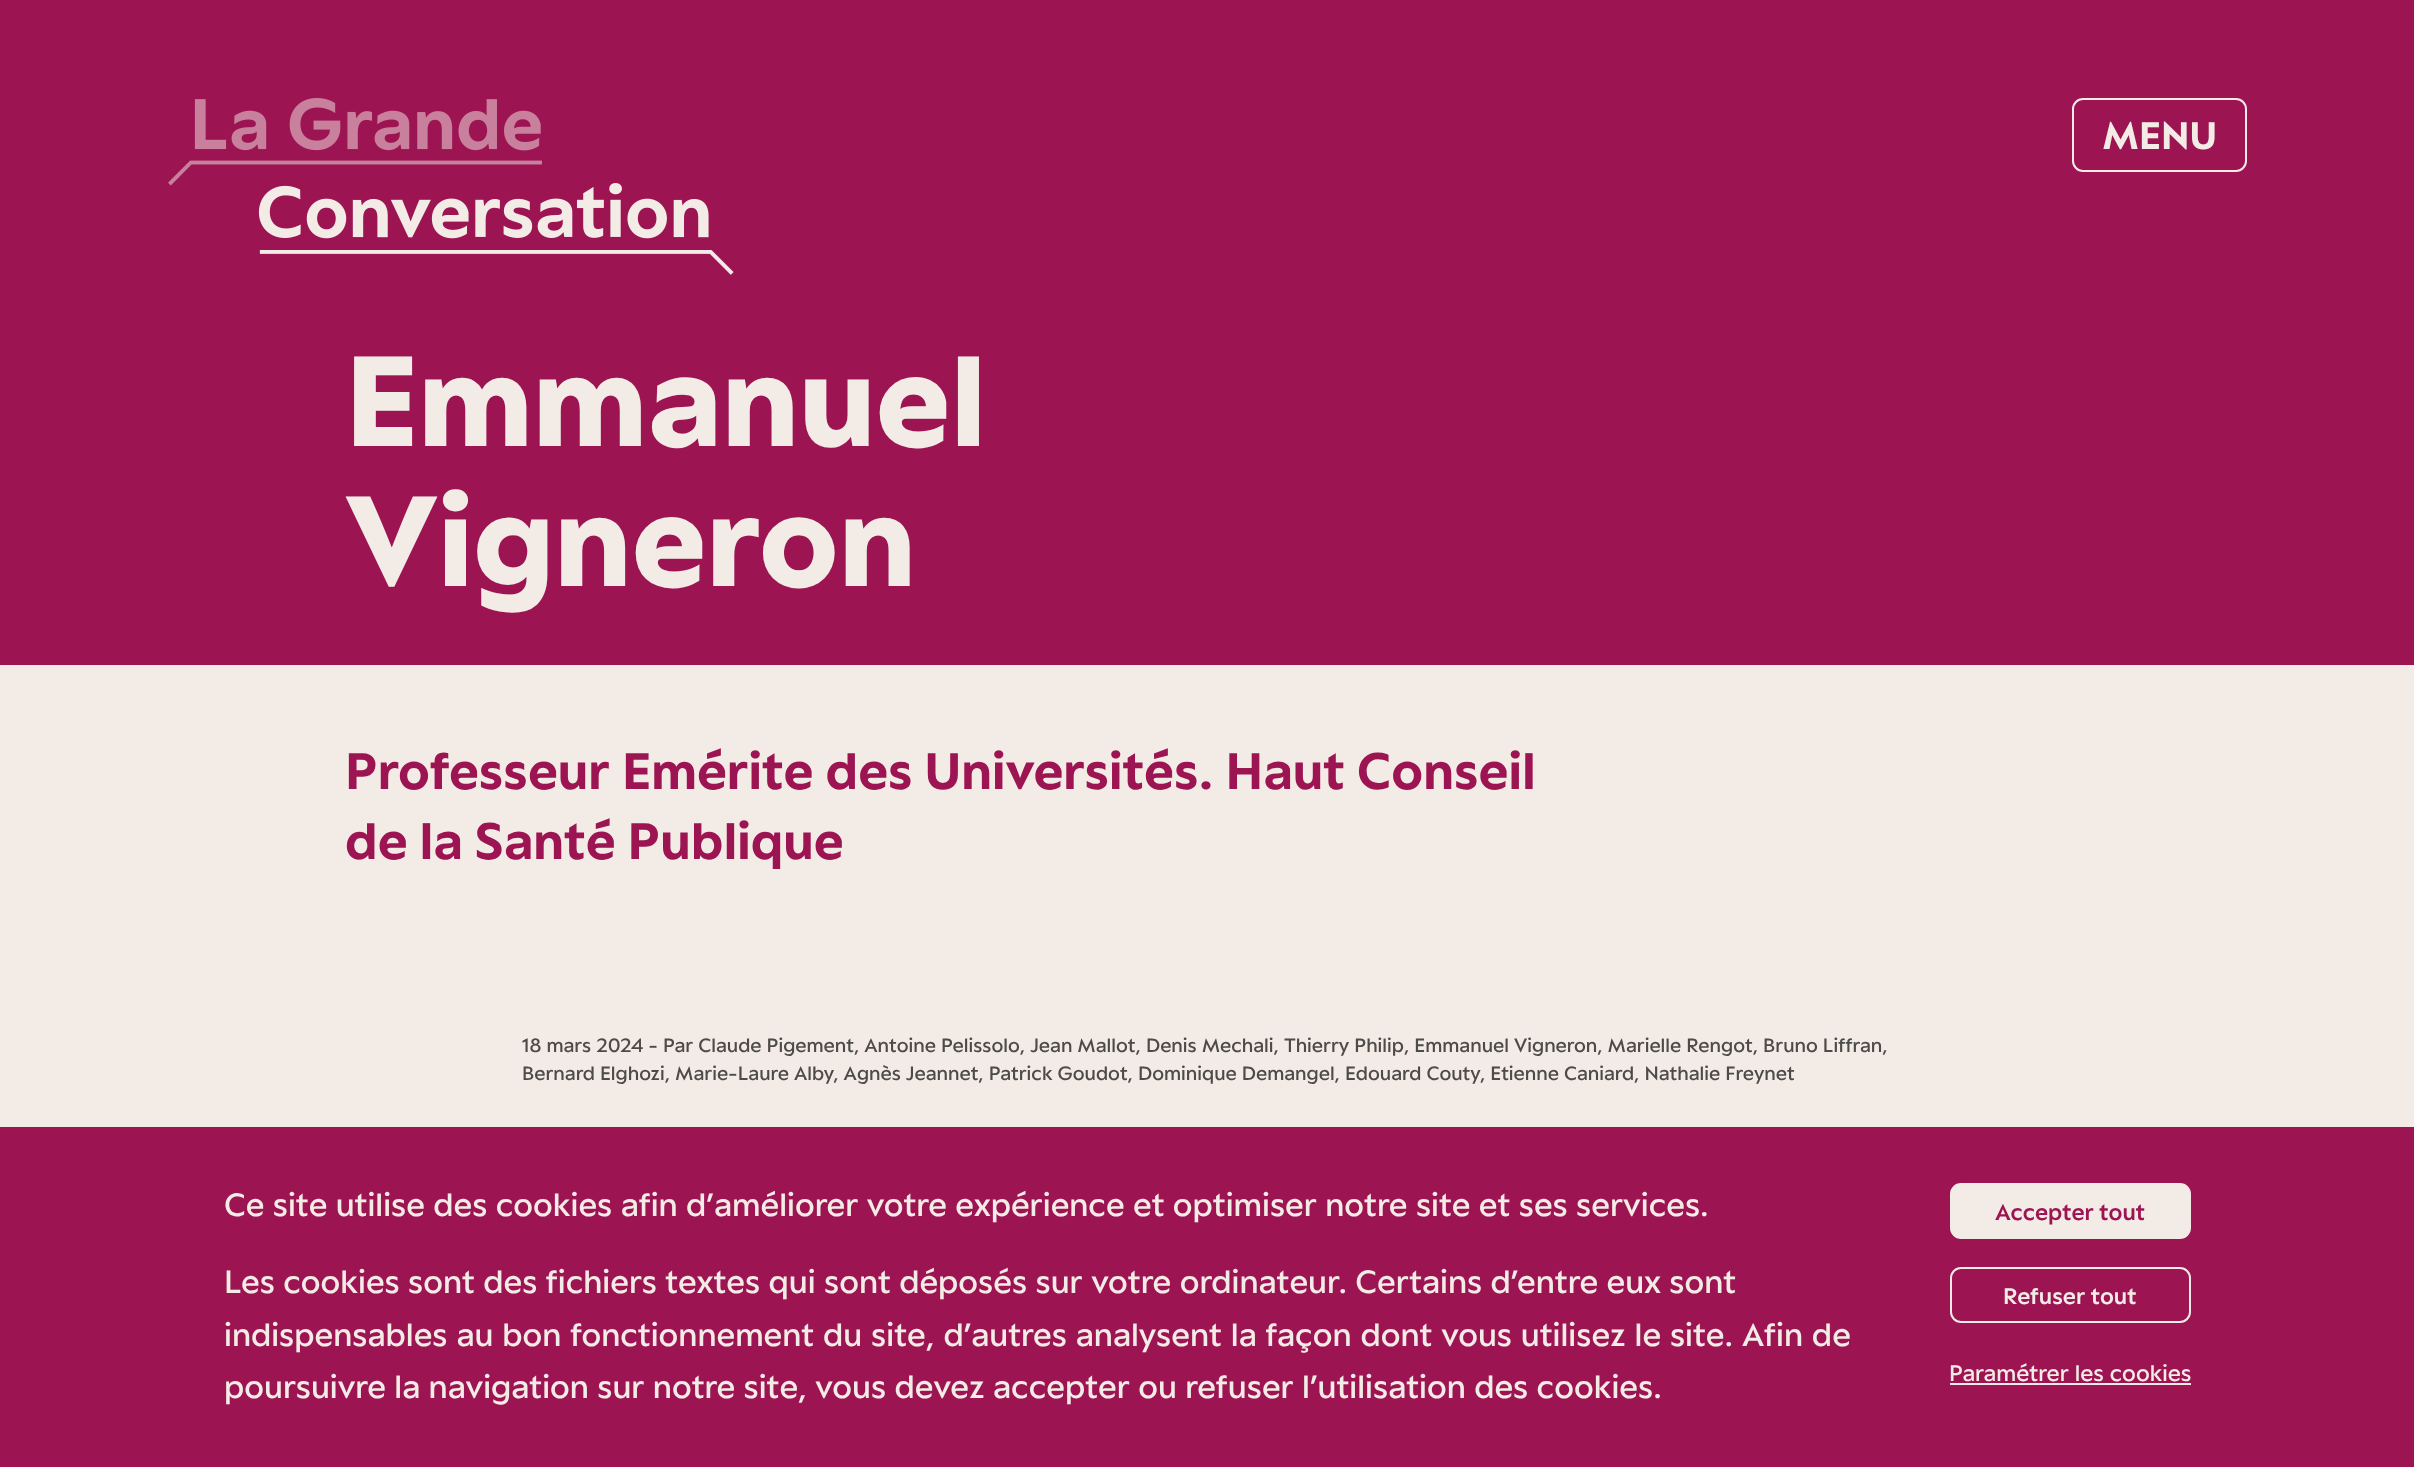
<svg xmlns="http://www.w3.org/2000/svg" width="2414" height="1467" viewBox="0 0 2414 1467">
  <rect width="100%" height="100%" fill="#f3ece6"/>
  <rect x="0" y="0" width="2414" height="665" fill="#9d1453"/>
  <image x="168" y="98" width="566" height="177" href="img1.png"/>
  <rect x="2073" y="99" width="173" height="72" rx="10" fill="none" stroke="#f3ece6" stroke-width="2"/>
  <text x="2102" y="149" font-family="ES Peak" font-size="42" font-weight="bold" fill="#f3ece6">MENU</text>
  <text x="345" y="446" font-family="ES Peak" font-size="140" font-weight="800" fill="#f3ece6">Emmanuel</text>
  <text x="345" y="586" font-family="ES Peak" font-size="140" font-weight="800" fill="#f3ece6">Vigneron</text>
  <text x="345" y="789" font-family="ES Peak" font-size="56" font-weight="bold" fill="#9d1453">Professeur Emérite des Universités. Haut Conseil</text>
  <text x="345" y="859" font-family="ES Peak" font-size="56" font-weight="bold" fill="#9d1453">de la Santé Publique</text>
  <text x="522" y="1052" font-family="ES Peak" font-size="21" font-weight="500" fill="#4d4b49">18 mars 2024 - Par Claude Pigement, Antoine Pelissolo, Jean Mallot, Denis Mechali, Thierry Philip, Emmanuel Vigneron, Marielle Rengot, Bruno Liffran,</text>
  <text x="522" y="1080" font-family="ES Peak" font-size="21" font-weight="500" fill="#4d4b49">Bernard Elghozi, Marie-Laure Alby, Agnès Jeannet, Patrick Goudot, Dominique Demangel, Edouard Couty, Etienne Caniard, Nathalie Freynet</text>
  <rect x="0" y="1127" width="2414" height="340" fill="#9d1453"/>
  <text x="224" y="1216" font-family="ES Peak" font-size="35" font-weight="500" fill="#f3ece6">Ce site utilise des cookies afin d’améliorer votre expérience et optimiser notre site et ses services.</text>
  <text x="224" y="1293" font-family="ES Peak" font-size="35" font-weight="500" fill="#f3ece6">Les cookies sont des fichiers textes qui sont déposés sur votre ordinateur. Certains d’entre eux sont</text>
  <text x="224" y="1346" word-spacing="0.5" font-family="ES Peak" font-size="35" font-weight="500" fill="#f3ece6">indispensables au bon fonctionnement du site, d’autres analysent la façon dont vous utilisez le site. Afin de</text>
  <text x="224" y="1398" font-family="ES Peak" font-size="35" font-weight="500" fill="#f3ece6">poursuivre la navigation sur notre site, vous devez accepter ou refuser l’utilisation des cookies.</text>
  <rect x="1951" y="1184" width="239" height="54" rx="10" fill="#f3ece6" stroke="#f3ece6" stroke-width="2"/>
  <text x="1995" y="1220" font-family="ES Peak" font-size="24.5" font-weight="600" fill="#9d1453">Accepter tout</text>
  <rect x="1951" y="1268" width="239" height="54" rx="10" fill="none" stroke="#f3ece6" stroke-width="2"/>
  <text x="2003" y="1304" font-family="ES Peak" font-size="24.5" font-weight="600" fill="#f3ece6">Refuser tout</text>
  <text x="1949" y="1381" font-family="ES Peak" font-size="24.5" font-weight="500" fill="#f3ece6">Paramétrer les cookies</text>
  <rect x="1950" y="1383" width="241" height="2" fill="#f3ece6"/>
</svg>
